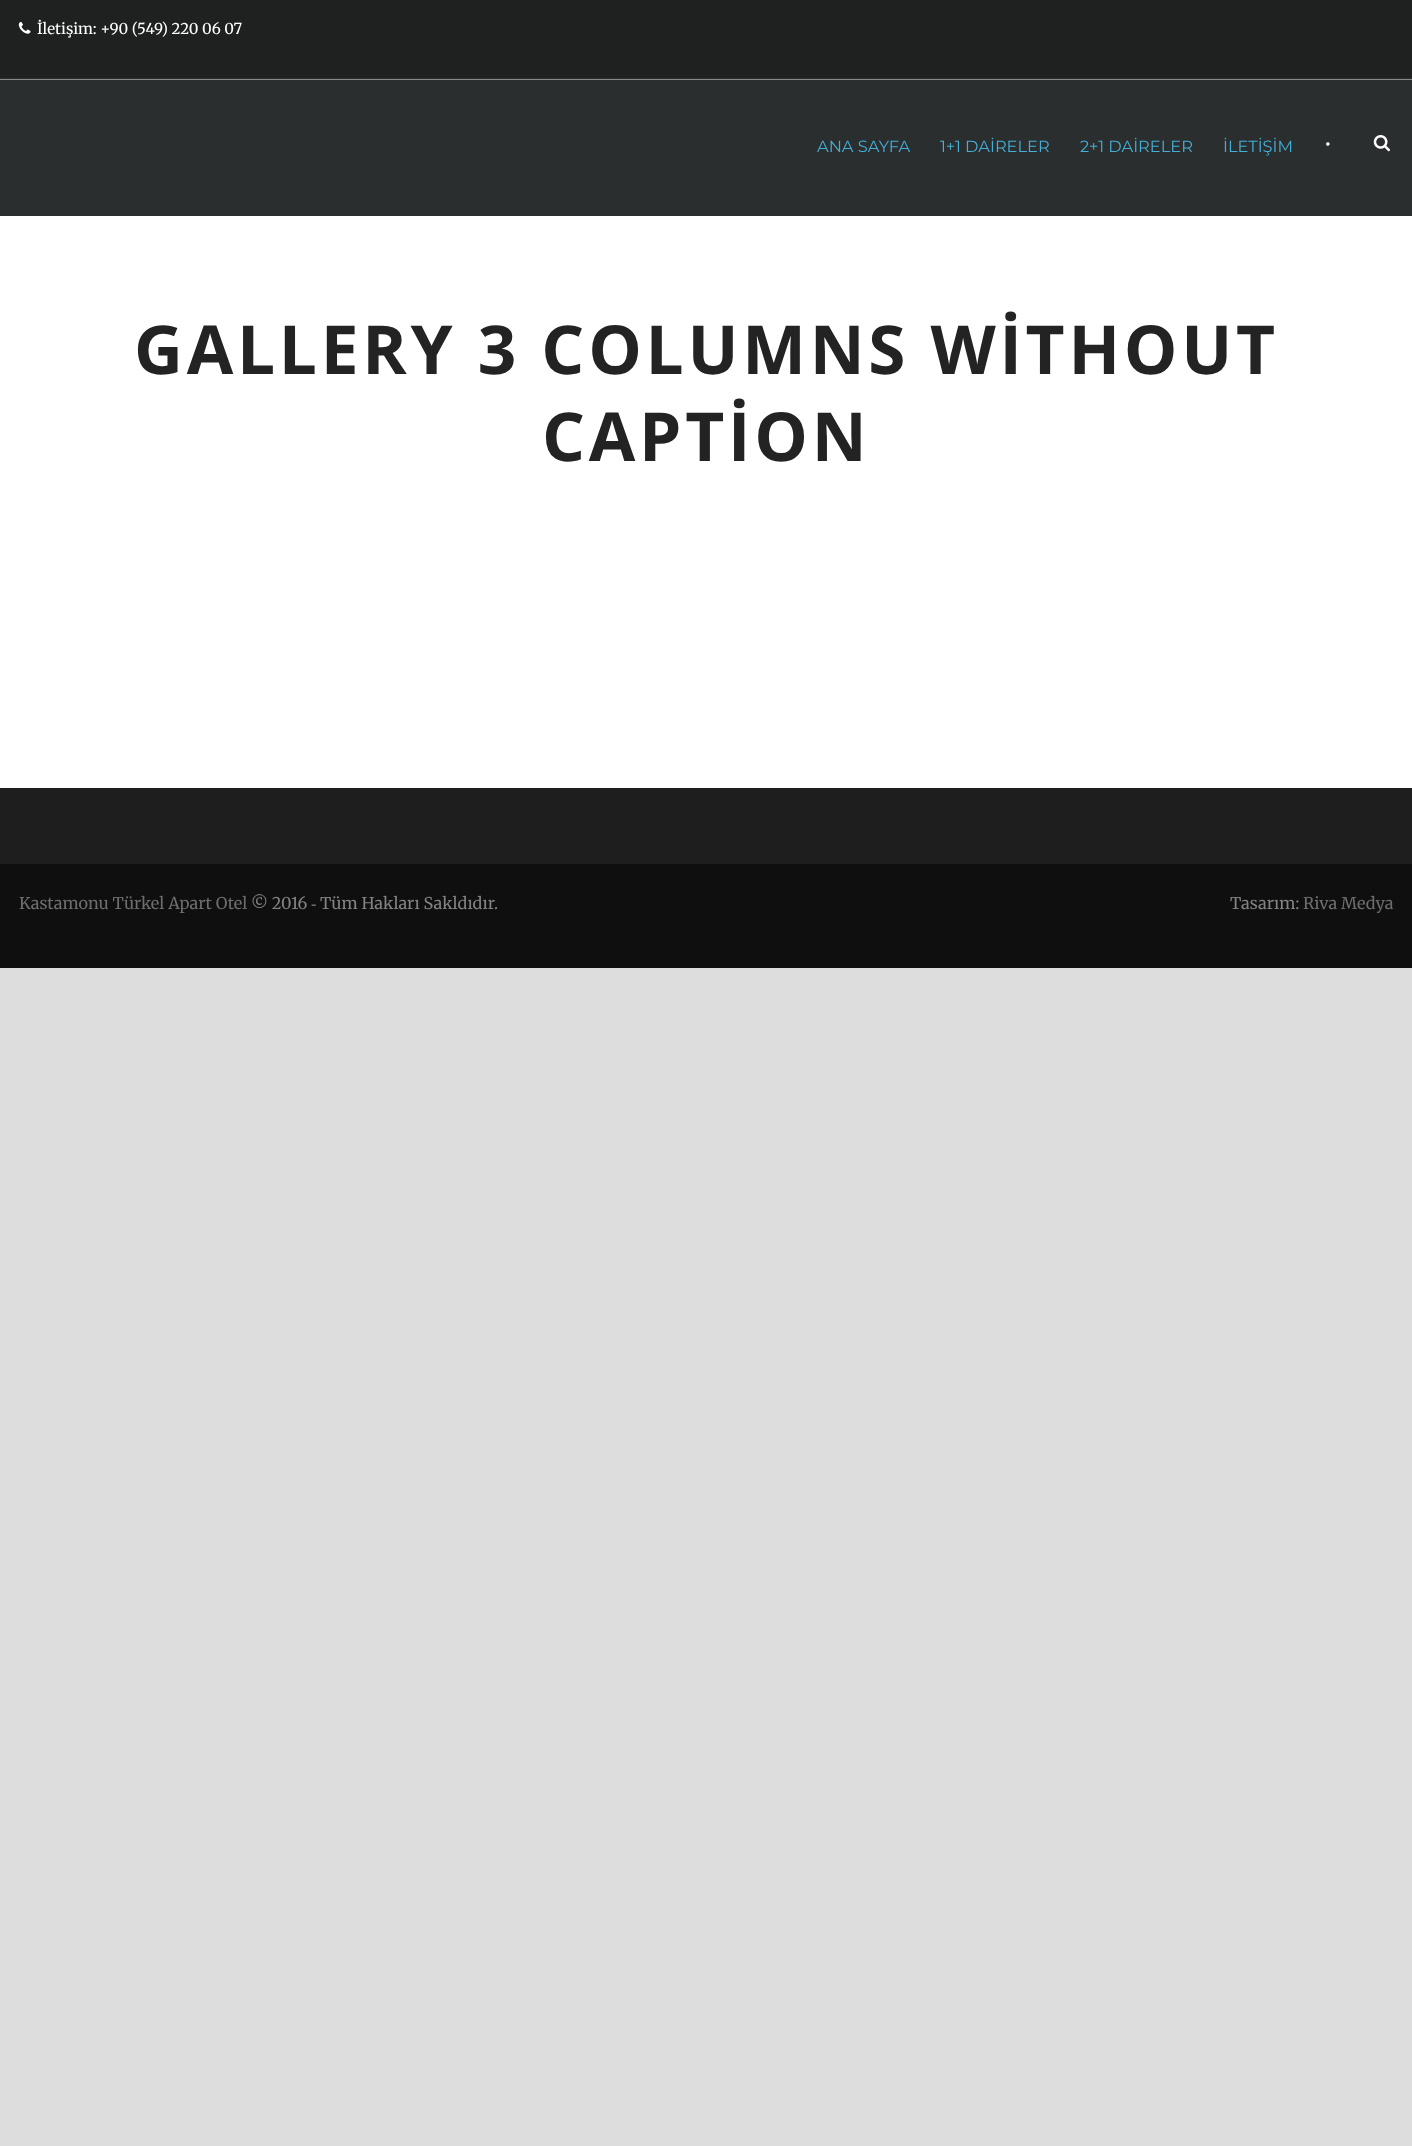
<svg xmlns="http://www.w3.org/2000/svg" width="1412" height="2146" viewBox="0 0 1412 2146">
  <rect width="100%" height="100%" fill="#dddddd"/>
  <rect x="0" y="216" width="1412" height="572" fill="#ffffff"/>
  <rect x="0" y="78" width="1412" height="138" fill="#2a2e2f"/>
  <rect x="0" y="0" width="1412" height="78" fill="#1f2121"/>
  <image x="18" y="22" width="13" height="12" href="img1.png"/>
  <text x="37" y="34" font-family="Merriweather" font-size="15" fill="#ffffff">İletişim: +90 (549) 220 06 07</text>
  <rect x="0" y="79" width="1412" height="1" fill="#898989"/>
  <text x="817" y="152" font-family="Montserrat" font-size="16.25" fill="#44afd7">ANA SAYFA</text>
  <text x="940" y="152" font-family="Montserrat" font-size="16.25" fill="#44afd7">1+1 DAİRELER</text>
  <text x="1080" y="152" font-family="Montserrat" font-size="16.25" fill="#44afd7">2+1 DAİRELER</text>
  <text x="1223" y="152" font-family="Montserrat" font-size="16.25" fill="#44afd7">İLETİŞİM</text>
  <text x="1324" y="150" font-family="Merriweather" font-size="18" fill="#ffffff">•</text>
  <image x="1373" y="135" width="17" height="17" href="img2.png"/>
  <text x="134" y="374" font-family="Open Sans" font-size="67.5" font-weight="bold" letter-spacing="3.75" fill="#232323">GALLERY 3 COLUMNS WİTHOUT</text>
  <text x="542" y="461" font-family="Open Sans" font-size="67.5" font-weight="bold" letter-spacing="3.75" fill="#232323">CAPTİON</text>
  <rect x="0" y="788" width="1412" height="76" fill="#1e1e1e"/>
  <rect x="0" y="864" width="1412" height="104" fill="#0f0f0f"/>
  <text x="19" y="909" font-family="Merriweather" font-size="16.25" fill="#6d6d6d">Kastamonu Türkel Apart Otel</text>
  <text x="251" y="909" font-family="Merriweather" font-size="16.25" fill="#828282">© 2016</text>
  <text x="311" y="909" font-family="Liberation Serif" font-size="16.25" fill="#828282">‐</text>
  <text x="320" y="909" font-family="Merriweather" font-size="16.25" fill="#828282">Tüm Hakları Sakldıdır.</text>
  <text x="1230" y="909" font-family="Merriweather" font-size="16.25" fill="#828282">Tasarım:</text>
  <text x="1303" y="909" font-family="Merriweather" font-size="16.25" fill="#6d6d6d">Riva Medya</text>
</svg>
